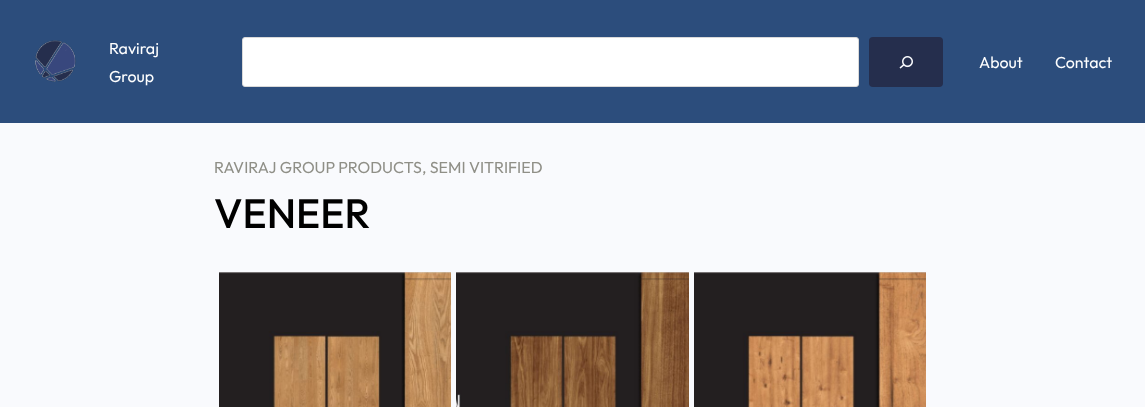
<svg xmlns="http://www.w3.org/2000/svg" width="1145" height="407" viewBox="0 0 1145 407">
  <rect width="100%" height="100%" fill="#f9fafd"/>
  <rect x="0" y="0" width="1145" height="123" fill="#2c4d7c"/>
  <image x="35" y="40" width="41" height="42" href="img1.png"/>
  <text x="109" y="54" font-family="Outfit" font-size="16" fill="#ffffff">Raviraj</text>
  <text x="109" y="82" font-family="Outfit" font-size="16" fill="#ffffff">Group</text>
  <rect x="242.5" y="37.5" width="616" height="49" rx="2.5" fill="#ffffff" stroke="#d9d9d9"/>
  <rect x="869" y="37" width="74" height="50" rx="4" fill="#252e4d"/>
  <image x="899" y="56" width="14" height="13" href="img2.png"/>
  <text x="979" y="68" font-family="Outfit" font-size="16" fill="#ffffff">About</text>
  <text x="1055" y="68" font-family="Outfit" font-size="16" fill="#ffffff">Contact</text>
  <text x="214" y="173" font-family="Outfit" font-size="16" fill="#8f8f87">RAVIRAJ GROUP PRODUCTS, SEMI VITRIFIED</text>
  <text x="214" y="228" font-family="Outfit" font-size="41" font-weight="500" fill="#000000">VENEER</text>
  <image x="219" y="272" width="232" height="135" href="img3.png"/>
  <image x="456" y="272" width="233" height="135" href="img4.png"/>
  <image x="694" y="272" width="232" height="135" href="img5.png"/>
</svg>
